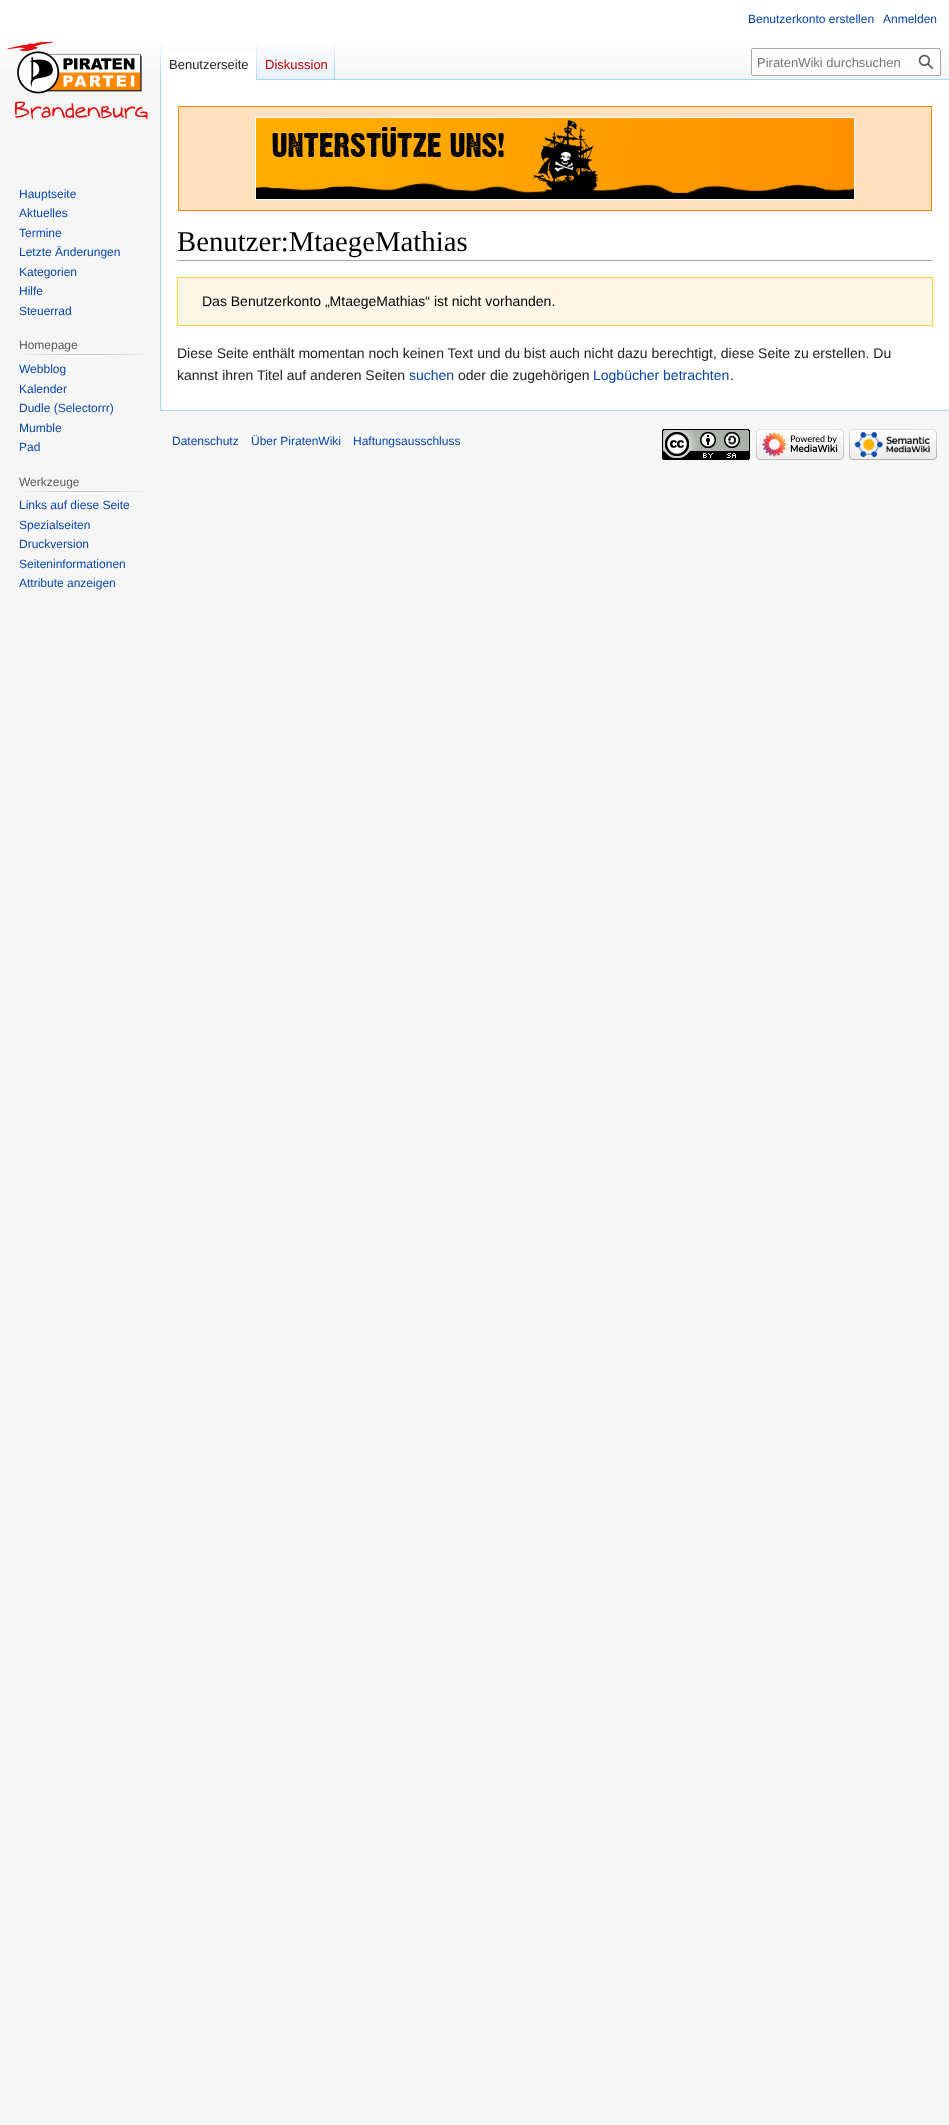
<svg xmlns="http://www.w3.org/2000/svg" width="949" height="2125" viewBox="0 0 949 2125">
  <defs>
    <linearGradient id="g1" gradientUnits="userSpaceOnUse" x1="475" y1="0" x2="475" y2="80"><stop offset="0.5" stop-color="#ffffff"/><stop offset="1" stop-color="#f6f6f6"/></linearGradient>
    <linearGradient id="g2" gradientUnits="userSpaceOnUse" x1="161" y1="40" x2="161" y2="80"><stop offset="0" stop-color="#a7d7f9" stop-opacity="0"/><stop offset="1" stop-color="#a7d7f9"/></linearGradient>
    <linearGradient id="g3" gradientUnits="userSpaceOnUse" x1="257" y1="40" x2="257" y2="80"><stop offset="0" stop-color="#ffffff"/><stop offset="1" stop-color="#a7d7f9"/></linearGradient>
    <linearGradient id="g4" gradientUnits="userSpaceOnUse" x1="296" y1="80" x2="296" y2="40"><stop offset="0" stop-color="#77c1f6"/><stop offset="0.03" stop-color="#e8f2f8"/><stop offset="1" stop-color="#ffffff"/></linearGradient>
    <linearGradient id="g5" gradientUnits="userSpaceOnUse" x1="335" y1="40" x2="335" y2="80"><stop offset="0" stop-color="#a7d7f9" stop-opacity="0"/><stop offset="1" stop-color="#a7d7f9"/></linearGradient>
    <linearGradient id="g6" gradientUnits="userSpaceOnUse" x1="19" y1="355" x2="150" y2="355"><stop offset="0" stop-color="#f6f6f6"/><stop offset="0.33" stop-color="#c8ccd1"/><stop offset="0.66" stop-color="#c8ccd1"/><stop offset="1" stop-color="#f6f6f6"/></linearGradient>
    <linearGradient id="g7" gradientUnits="userSpaceOnUse" x1="19" y1="492" x2="150" y2="492"><stop offset="0" stop-color="#f6f6f6"/><stop offset="0.33" stop-color="#c8ccd1"/><stop offset="0.66" stop-color="#c8ccd1"/><stop offset="1" stop-color="#f6f6f6"/></linearGradient>
  </defs>
  <rect width="100%" height="100%" fill="#f6f6f6"/>
  <rect x="0" y="0" width="949" height="69" fill="url(#g1)"/>
  <text x="748" y="23" font-family="Liberation Sans" font-size="12" fill="#0645ad">Benutzerkonto erstellen</text>
  <text x="883" y="23" font-family="Liberation Sans" font-size="12" fill="#0645ad">Anmelden</text>
  <rect x="160" y="410" width="789" height="1" fill="#a7d7f9"/>
  <rect x="160" y="79" width="1" height="332" fill="#a7d7f9"/>
  <rect x="160" y="40" width="1" height="40" fill="url(#g2)"/>
  <rect x="161" y="51" width="95" height="29" fill="#ffffff"/>
  <rect x="256" y="40" width="1" height="40" fill="url(#g3)"/>
  <text x="169" y="69" font-family="Liberation Sans" font-size="13" fill="#202122">Benutzerseite</text>
  <rect x="257" y="46" width="78" height="34" fill="url(#g4)"/>
  <rect x="334" y="40" width="1" height="40" fill="url(#g5)"/>
  <text x="265" y="69" font-family="Liberation Sans" font-size="13" fill="#ba0000">Diskussion</text>
  <rect x="751.5" y="48.5" width="189" height="27" rx="1.5" fill="#ffffff" fill-opacity="0.5" stroke="#a2a9b1"/>
  <text x="757" y="67" font-family="Liberation Sans" font-size="13" fill="#72777d">PiratenWiki durchsuchen</text>
  <image x="918" y="54" width="15" height="15" href="img1.png"/>
  <image x="6" y="41" width="142" height="78" href="img2.png"/>
  <text x="19" y="198" font-family="Liberation Sans" font-size="12" fill="#0645ad">Hauptseite</text>
  <text x="19" y="217" font-family="Liberation Sans" font-size="12" fill="#0645ad">Aktuelles</text>
  <text x="19" y="237" font-family="Liberation Sans" font-size="12" fill="#0645ad">Termine</text>
  <text x="19" y="256" font-family="Liberation Sans" font-size="12" fill="#0645ad">Letzte Änderungen</text>
  <text x="19" y="276" font-family="Liberation Sans" font-size="12" fill="#0645ad">Kategorien</text>
  <text x="19" y="295" font-family="Liberation Sans" font-size="12" fill="#0645ad">Hilfe</text>
  <text x="19" y="315" font-family="Liberation Sans" font-size="12" fill="#0645ad">Steuerrad</text>
  <rect x="19" y="354" width="131" height="1" fill="url(#g6)"/>
  <text x="19" y="349" font-family="Liberation Sans" font-size="12" fill="#54595d">Homepage</text>
  <text x="19" y="373" font-family="Liberation Sans" font-size="12" fill="#0645ad">Webblog</text>
  <text x="19" y="393" font-family="Liberation Sans" font-size="12" fill="#0645ad">Kalender</text>
  <text x="19" y="412" font-family="Liberation Sans" font-size="12" fill="#0645ad">Dudle (Selectorrr)</text>
  <text x="19" y="432" font-family="Liberation Sans" font-size="12" fill="#0645ad">Mumble</text>
  <text x="19" y="451" font-family="Liberation Sans" font-size="12" fill="#0645ad">Pad</text>
  <rect x="19" y="491" width="131" height="1" fill="url(#g7)"/>
  <text x="19" y="486" font-family="Liberation Sans" font-size="12" fill="#54595d">Werkzeuge</text>
  <text x="19" y="509" font-family="Liberation Sans" font-size="12" fill="#0645ad">Links auf diese Seite</text>
  <text x="19" y="529" font-family="Liberation Sans" font-size="12" fill="#0645ad">Spezialseiten</text>
  <text x="19" y="548" font-family="Liberation Sans" font-size="12" fill="#0645ad">Druckversion</text>
  <text x="19" y="568" font-family="Liberation Sans" font-size="12" fill="#0645ad">Seiteninformationen</text>
  <text x="19" y="587" font-family="Liberation Sans" font-size="12" fill="#0645ad">Attribute anzeigen</text>
  <rect x="161" y="80" width="788" height="330" fill="#ffffff"/>
  <rect x="335" y="79" width="614" height="1" fill="#a7d7f9"/>
  <rect x="178.5" y="106.5" width="753" height="104" fill="#ffe1bf" stroke="#ff8800"/>
  <image x="255" y="117" width="600" height="83" href="img3.png"/>
  <rect x="177" y="260" width="756" height="1" fill="#a2a9b1"/>
  <text x="177" y="251" font-family="Liberation Serif" font-size="28.75" fill="#000000">Benutzer:MtaegeMathias</text>
  <rect x="177.5" y="277.5" width="755" height="48" fill="#fef6e7" stroke="#ffcc33"/>
  <text x="202" y="306" font-family="Liberation Sans" font-size="14" fill="#000000">Das Benutzerkonto „MtaegeMathias“ ist nicht vorhanden.</text>
  <text x="177" y="358" font-family="Liberation Sans" font-size="14" fill="#202122">Diese Seite enthält momentan noch keinen Text und du bist auch nicht dazu berechtigt, diese Seite zu erstellen. Du</text>
  <text x="177" y="380" font-family="Liberation Sans" font-size="14" fill="#202122">kannst ihren Titel auf anderen Seiten</text>
  <text x="409" y="380" font-family="Liberation Sans" font-size="14" fill="#0645ad">suchen</text>
  <text x="458" y="380" font-family="Liberation Sans" font-size="14" fill="#202122">oder die zugehörigen</text>
  <text x="593" y="380" font-family="Liberation Sans" font-size="14" fill="#0645ad">Logbücher betrachten</text>
  <text x="730" y="380" font-family="Liberation Sans" font-size="14" fill="#202122">.</text>
  <text x="172" y="445" font-family="Liberation Sans" font-size="12" fill="#0645ad">Datenschutz</text>
  <text x="251" y="445" font-family="Liberation Sans" font-size="12" fill="#0645ad">Über PiratenWiki</text>
  <text x="353" y="445" font-family="Liberation Sans" font-size="12" fill="#0645ad">Haftungsausschluss</text>
  <image x="662" y="429" width="88" height="31" href="img4.png"/>
  <image x="756" y="429" width="88" height="31" href="img5.png"/>
  <image x="849" y="429" width="88" height="31" href="img6.png"/>
</svg>
